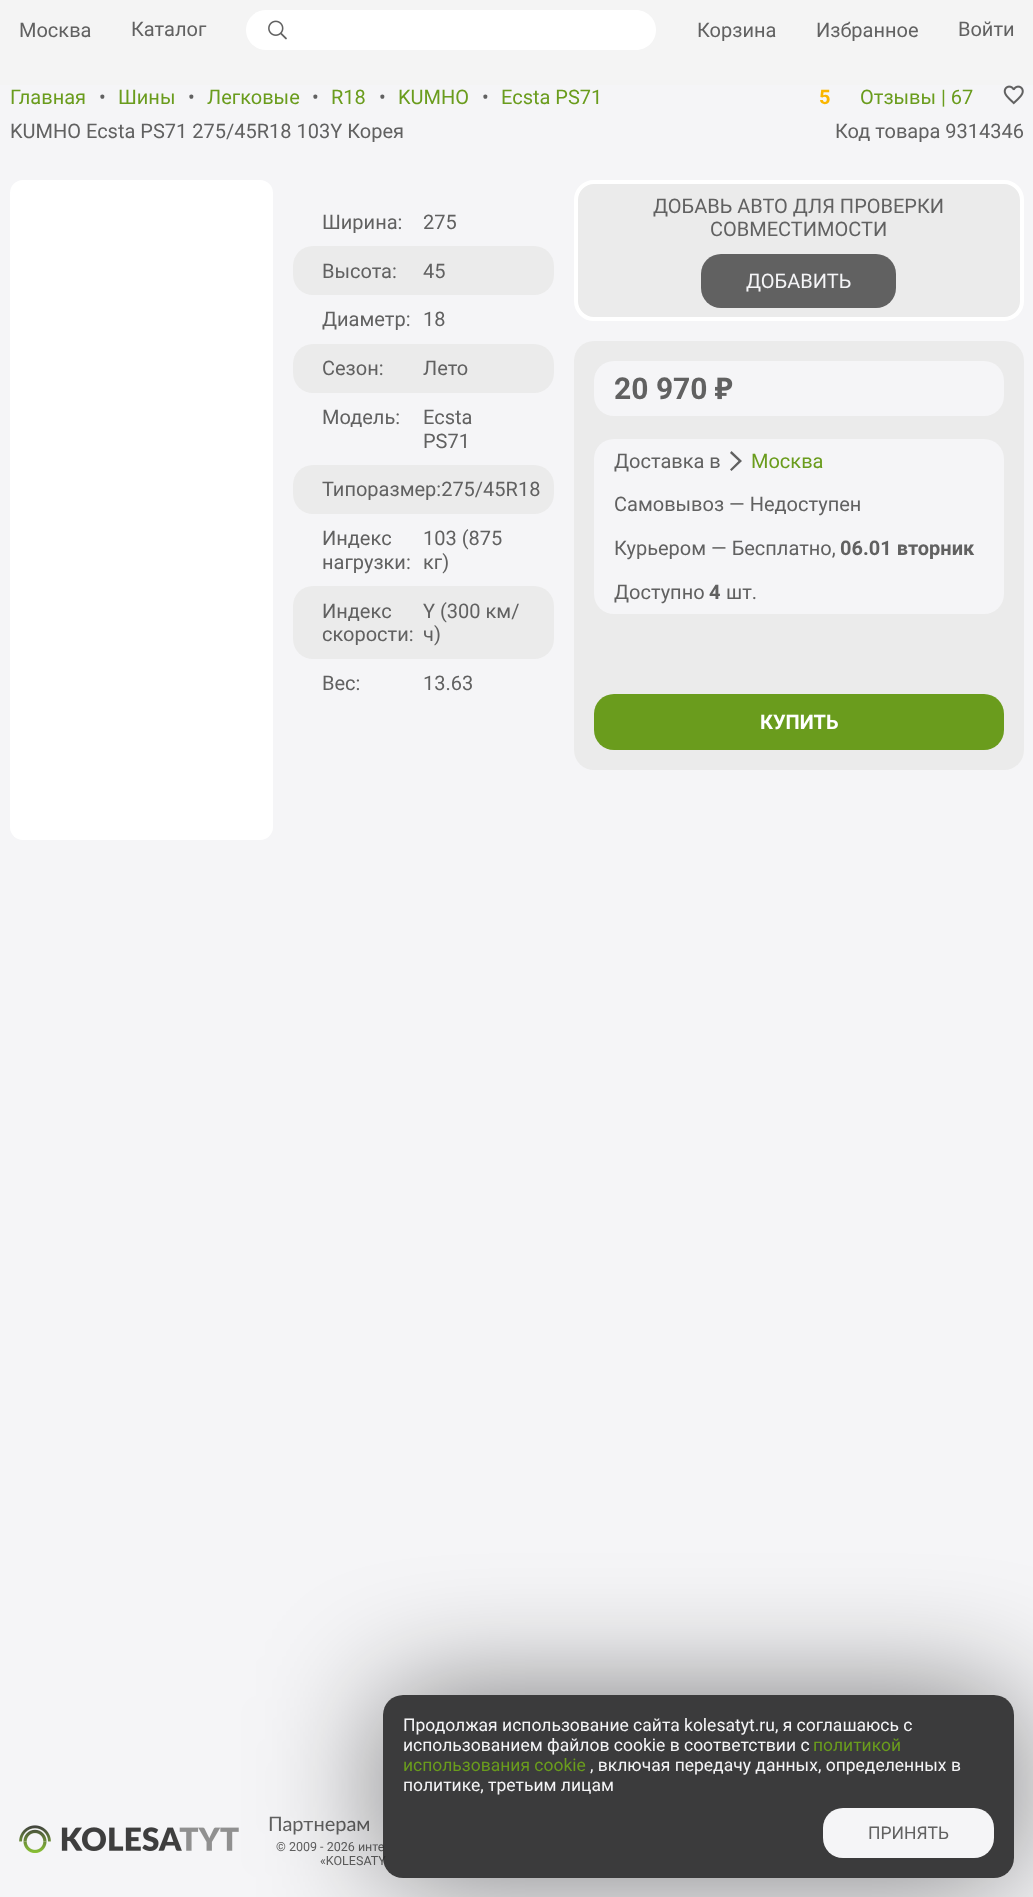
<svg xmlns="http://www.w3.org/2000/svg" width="1033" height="1897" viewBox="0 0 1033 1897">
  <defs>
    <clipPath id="clip1"><path d="M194 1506H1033V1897H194ZM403 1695H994C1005 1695 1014 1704 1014 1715V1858C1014 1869 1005 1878 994 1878H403C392 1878 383 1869 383 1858V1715C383 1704 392 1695 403 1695Z" clip-rule="evenodd"/></clipPath>
    <filter id="blur1" x="-50%" y="-200%" width="200%" height="500%"><feGaussianBlur stdDeviation="62.5"/></filter>
  </defs>
  <rect width="100%" height="100%" fill="#f5f5f7"/>
  <rect x="0" y="0" width="1033" height="85" fill="#f4f4f4"/>
  <text x="19" y="37" font-family="Roboto" font-size="20" fill="#616161">Москва</text>
  <text x="131" y="36" font-family="Roboto" font-size="20" fill="#616161">Каталог</text>
  <path d="M266 10H304V50H266C255 50 246 41 246 30C246 19 255 10 266 10Z" fill="#ffffff"/>
  <image x="268" y="20" width="19" height="20" href="img1.png"/>
  <path d="M304 10H636C647 10 656 19 656 30C656 41 647 50 636 50H304Z" fill="#ffffff"/>
  <text x="697" y="37" font-family="Roboto" font-size="20" fill="#616161">Корзина</text>
  <text x="816" y="37" font-family="Roboto" font-size="20" fill="#616161">Избранное</text>
  <text x="958" y="36" font-family="Roboto" font-size="20" fill="#616161">Войти</text>
  <text x="10" y="104" font-family="Roboto" font-size="20" fill="#6a9c1d">Главная</text>
  <text x="99" y="104" font-family="Roboto" font-size="20" fill="#616161">•</text>
  <text x="118" y="104" font-family="Roboto" font-size="20" fill="#6a9c1d">Шины</text>
  <text x="188" y="104" font-family="Roboto" font-size="20" fill="#616161">•</text>
  <text x="207" y="104" font-family="Roboto" font-size="20" fill="#6a9c1d">Легковые</text>
  <text x="312" y="104" font-family="Roboto" font-size="20" fill="#616161">•</text>
  <text x="331" y="104" font-family="Roboto" font-size="20" fill="#6a9c1d">R18</text>
  <text x="379" y="104" font-family="Roboto" font-size="20" fill="#616161">•</text>
  <text x="398" y="104" font-family="Roboto" font-size="20" fill="#6a9c1d">KUMHO</text>
  <text x="482" y="104" font-family="Roboto" font-size="20" fill="#616161">•</text>
  <text x="501" y="104" font-family="Roboto" font-size="20" fill="#6a9c1d">Ecsta PS71</text>
  <text x="819" y="104" font-family="Roboto" font-size="20" font-weight="bold" fill="#fab600">5</text>
  <text x="860" y="104" font-family="Roboto" font-size="20" fill="#6a9c1d">Отзывы | 67</text>
  <image x="1003" y="85" width="21" height="20" href="img2.png"/>
  <text x="10" y="138" font-family="Roboto" font-size="20" fill="#616161">KUMHO Ecsta PS71 275/45R18 103Y Корея</text>
  <text x="835" y="138" font-family="Roboto" font-size="20" fill="#616161">Код товара 9314346</text>
  <rect x="10" y="180" width="263" height="660" rx="13" fill="#ffffff"/>
  <text x="322" y="229" font-family="Roboto" font-size="20" fill="#616161">Ширина:</text>
  <text x="423" y="229" font-family="Roboto" font-size="20" fill="#616161">275</text>
  <rect x="293" y="246" width="261" height="49" rx="20" fill="#ebebeb"/>
  <text x="322" y="278" font-family="Roboto" font-size="20" fill="#616161">Высота:</text>
  <text x="423" y="278" font-family="Roboto" font-size="20" fill="#616161">45</text>
  <text x="322" y="326" font-family="Roboto" font-size="20" fill="#616161">Диаметр:</text>
  <text x="423" y="326" font-family="Roboto" font-size="20" fill="#616161">18</text>
  <rect x="293" y="344" width="261" height="49" rx="20" fill="#ebebeb"/>
  <text x="322" y="375" font-family="Roboto" font-size="20" fill="#616161">Сезон:</text>
  <text x="423" y="375" font-family="Roboto" font-size="20" fill="#616161">Лето</text>
  <text x="322" y="424" font-family="Roboto" font-size="20" fill="#616161">Модель:</text>
  <text x="423" y="424" font-family="Roboto" font-size="20" fill="#616161">Ecsta</text>
  <text x="423" y="448" font-family="Roboto" font-size="20" fill="#616161">PS71</text>
  <rect x="293" y="465" width="261" height="49" rx="20" fill="#ebebeb"/>
  <text x="322" y="496" font-family="Roboto" font-size="20" fill="#616161">Типоразмер:275/45R18</text>
  <text x="322" y="545" font-family="Roboto" font-size="20" fill="#616161">Индекс</text>
  <text x="322" y="569" font-family="Roboto" font-size="20" fill="#616161">нагрузки:</text>
  <text x="423" y="545" font-family="Roboto" font-size="20" fill="#616161">103 (875</text>
  <text x="423" y="569" font-family="Roboto" font-size="20" fill="#616161">кг)</text>
  <rect x="293" y="586" width="261" height="73" rx="20" fill="#ebebeb"/>
  <text x="322" y="618" font-family="Roboto" font-size="20" fill="#616161">Индекс</text>
  <text x="322" y="641" font-family="Roboto" font-size="20" fill="#616161">скорости:</text>
  <text x="423" y="618" font-family="Roboto" font-size="20" fill="#616161">Y (300 км/</text>
  <text x="423" y="641" font-family="Roboto" font-size="20" fill="#616161">ч)</text>
  <text x="322" y="690" font-family="Roboto" font-size="20" fill="#616161">Вес:</text>
  <text x="423" y="690" font-family="Roboto" font-size="20" fill="#616161">13.63</text>
  <rect x="576" y="182" width="446" height="137" rx="18" fill="#ebebeb" stroke="#ffffff" stroke-width="4"/>
  <text x="653" y="213" font-family="Roboto" font-size="20" fill="#616161">ДОБАВЬ АВТО ДЛЯ ПРОВЕРКИ</text>
  <text x="710" y="236" font-family="Roboto" font-size="20" fill="#616161">СОВМЕСТИМОСТИ</text>
  <rect x="701" y="254" width="195" height="54" rx="20" fill="#616161"/>
  <text x="746" y="288" font-family="Roboto" font-size="20" fill="#f5f5f7">ДОБАВИТЬ</text>
  <rect x="574" y="341" width="450" height="429" rx="20" fill="#ebebeb"/>
  <rect x="594" y="361" width="410" height="55" rx="20" fill="#f5f5f7"/>
  <text x="614" y="399" font-family="Roboto" font-size="30" font-weight="bold" fill="#616161">20 970</text>
  <image x="715" y="377" width="18" height="23" href="img3.png"/>
  <rect x="594" y="439" width="410" height="175" rx="20" fill="#f5f5f7"/>
  <text x="614" y="468" font-family="Roboto" font-size="20" fill="#616161">Доставка в</text>
  <path d="M738.5 461L730 453L731.5 451L742 461L731.5 471L730 469.5Z" fill="#616161"/>
  <text x="751" y="468" font-family="Roboto" font-size="20" fill="#6a9c1d">Москва</text>
  <text x="614" y="511" font-family="Roboto" font-size="20" fill="#616161">Самовывоз — Недоступен</text>
  <text x="614" y="555" font-family="Roboto" font-size="20" fill="#616161">Курьером — Бесплатно,</text>
  <text x="840" y="555" font-family="Roboto" font-size="20" font-weight="bold" fill="#616161">06.01 вторник</text>
  <text x="614" y="599" font-family="Roboto" font-size="20" fill="#616161">Доступно</text>
  <text x="709" y="599" font-family="Roboto" font-size="20" font-weight="bold" fill="#616161">4</text>
  <text x="726" y="599" font-family="Roboto" font-size="20" fill="#616161">шт.</text>
  <rect x="594" y="694" width="410" height="56" rx="20" fill="#6a9c1d"/>
  <text x="760" y="729" font-family="Roboto" font-size="20" font-weight="bold" fill="#ffffff">КУПИТЬ</text>
  <image x="19" y="1825" width="32" height="28" href="img4.png"/>
  <image x="61" y="1827" width="121" height="24" href="img5.png"/>
  <image x="179" y="1827" width="60" height="24" href="img6.png"/>
  <text x="268" y="1831" font-family="Lato" font-size="20" fill="#616161">Партнерам</text>
  <text x="276" y="1851" font-family="Roboto" font-size="12.5" fill="#616161">© 2009 - 2026 инте</text>
  <text x="320" y="1865" font-family="Roboto" font-size="12.5" fill="#616161">«KOLESATY</text>
  <g clip-path="url(#clip1)">
    <rect x="383" y="1695" width="631" height="183" rx="20" fill="#000000" fill-opacity="0.5" filter="url(#blur1)"/>
  </g>
  <rect x="383" y="1695" width="631" height="183" rx="20" fill="#272727" fill-opacity="0.9"/>
  <text x="403" y="1731" font-family="Roboto" font-size="17.5" fill="#f5f5f7">Продолжая использование сайта kolesatyt.ru, я соглашаюсь с</text>
  <text x="403" y="1751" font-family="Roboto" font-size="17.5" fill="#f5f5f7">использованием файлов cookie в соответствии с</text>
  <text x="813" y="1751" font-family="Roboto" font-size="17.5" fill="#6a9c1d">политикой</text>
  <text x="403" y="1771" font-family="Roboto" font-size="17.5" fill="#6a9c1d">использования cookie</text>
  <text x="590" y="1771" font-family="Roboto" font-size="17.5" fill="#f5f5f7">, включая передачу данных, определенных в</text>
  <text x="403" y="1791" font-family="Roboto" font-size="17.5" fill="#f5f5f7">политике, третьим лицам</text>
  <rect x="823" y="1808" width="171" height="50" rx="20" fill="#f5f5f7"/>
  <text x="868" y="1839" font-family="Roboto" font-size="17.5" fill="#616161">ПРИНЯТЬ</text>
</svg>
